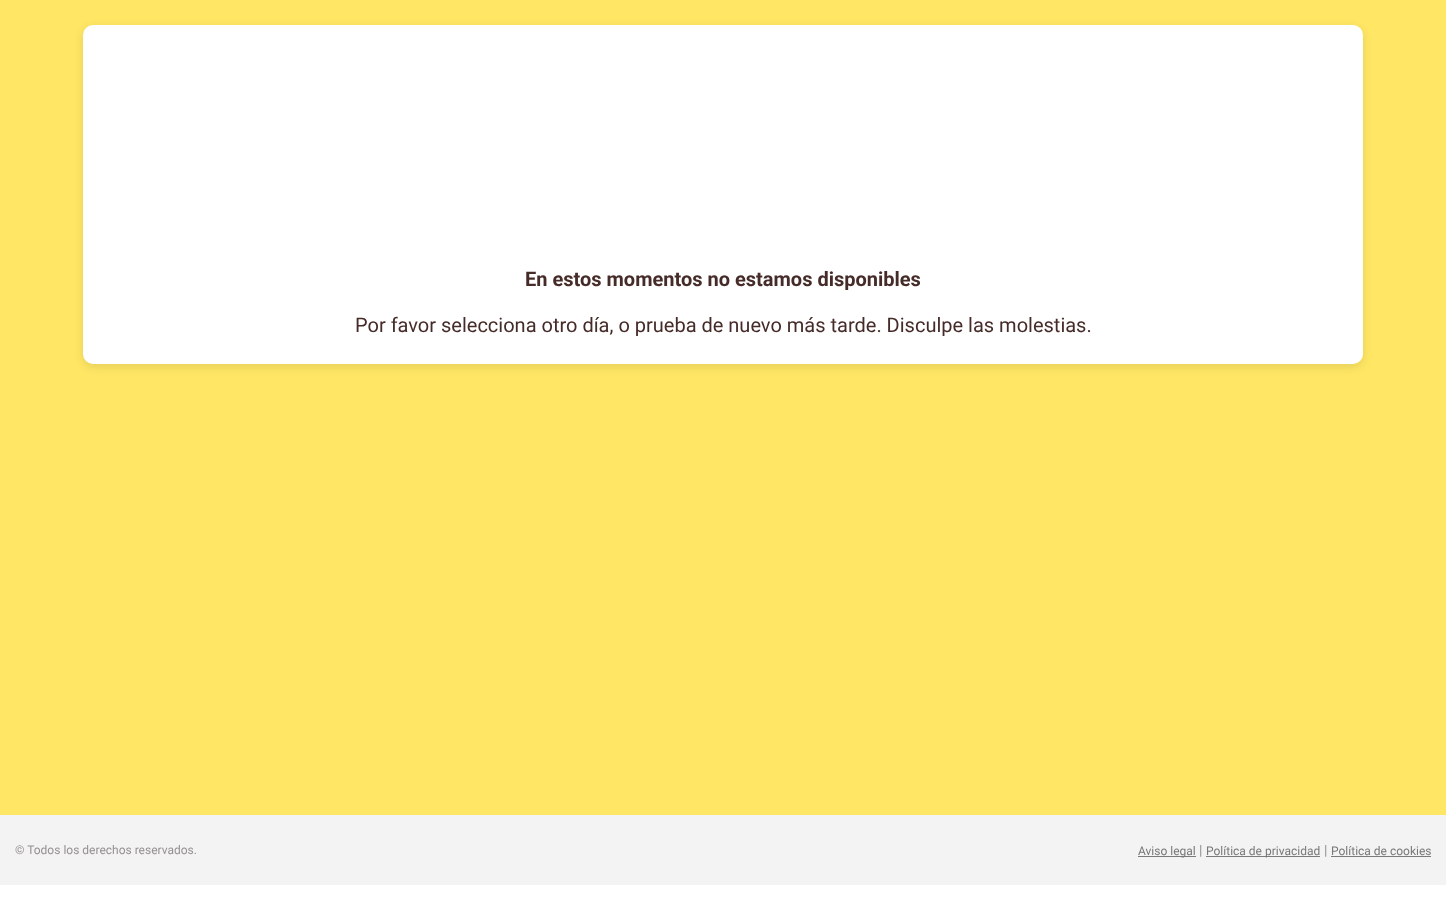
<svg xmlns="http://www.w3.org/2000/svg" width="1446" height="906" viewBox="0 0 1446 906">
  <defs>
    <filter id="blur1" x="-50%" y="-200%" width="200%" height="500%"><feGaussianBlur stdDeviation="5"/></filter>
  </defs>
  <rect width="100%" height="100%" fill="#ffffff"/>
  <rect x="0" y="0" width="1446" height="815" fill="#ffe664"/>
  <rect x="83" y="28" width="1280" height="339" rx="10" fill="#000000" fill-opacity="0.1" filter="url(#blur1)"/>
  <rect x="83" y="25" width="1280" height="339" rx="10" fill="#ffffff"/>
  <text x="525" y="286" font-family="Roboto" font-size="20" font-weight="bold" fill="#462c29">En estos momentos no estamos disponibles</text>
  <text x="355" y="332" font-family="Roboto" font-size="20" fill="#462c29">Por favor selecciona otro día, o prueba de nuevo más tarde. Disculpe las molestias.</text>
  <rect x="0" y="815" width="1446" height="70" fill="#f3f3f3"/>
  <text x="15" y="854" font-family="Roboto" font-size="12" fill="#959191">© Todos los derechos reservados.</text>
  <rect x="1138" y="856" width="58" height="1" fill="#7a7a7a"/>
  <text x="1138" y="855" font-family="Roboto" font-size="12" fill="#787878">Aviso legal</text>
  <text x="1199" y="855" font-family="Roboto" font-size="14" fill="#959191">|</text>
  <rect x="1206" y="856" width="114" height="1" fill="#7a7a7a"/>
  <text x="1206" y="855" font-family="Roboto" font-size="12" fill="#787878">Política de privacidad</text>
  <text x="1324" y="855" font-family="Roboto" font-size="14" fill="#959191">|</text>
  <text x="1331" y="855" font-family="Roboto" font-size="12" fill="#787878">Política de cookies</text>
  <rect x="1331" y="856" width="100" height="1" fill="#7a7a7a"/>
</svg>
